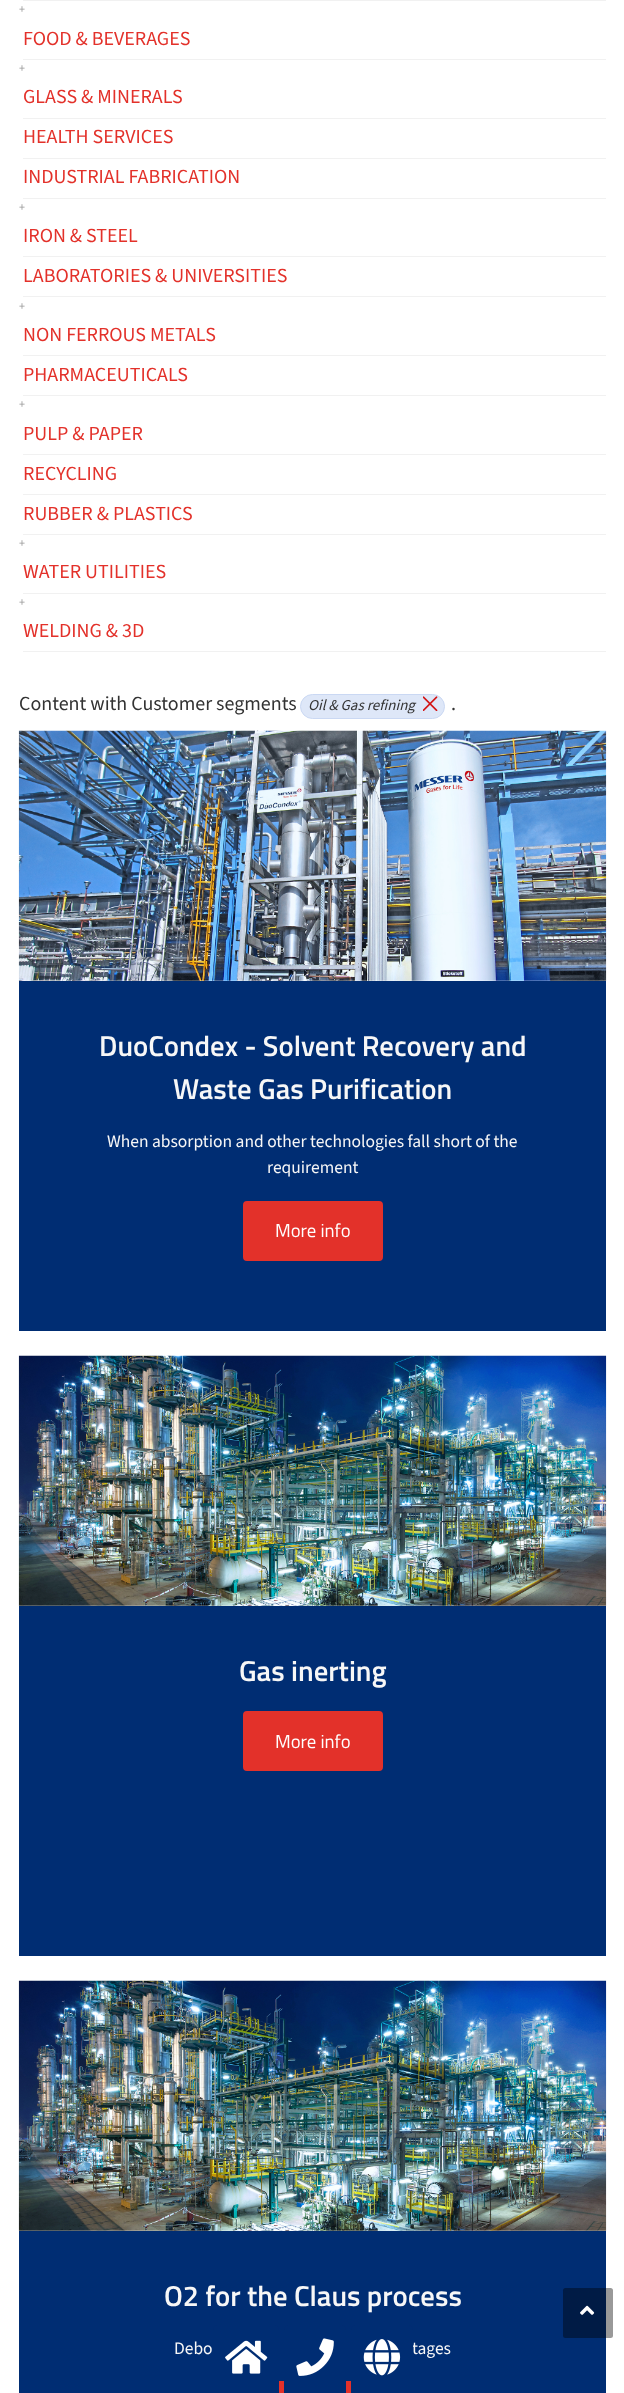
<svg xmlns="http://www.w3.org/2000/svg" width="624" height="2393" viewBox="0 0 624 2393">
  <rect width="100%" height="100%" fill="#ffffff"/>
  <rect x="23" y="0" width="583" height="1" fill="#f1f1f1"/>
  <text x="19" y="13" font-family="'Source Sans 3'" font-size="12" fill="#999999">+</text>
  <rect x="23" y="59" width="583" height="1" fill="#f1f1f1"/>
  <text x="23" y="45" font-family="'Source Sans 3'" font-size="20" fill="#e3312a">FOOD &amp; BEVERAGES</text>
  <text x="19" y="72" font-family="'Source Sans 3'" font-size="12" fill="#999999">+</text>
  <rect x="23" y="118" width="583" height="1" fill="#f1f1f1"/>
  <text x="23" y="103" font-family="'Source Sans 3'" font-size="20" fill="#e3312a">GLASS &amp; MINERALS</text>
  <rect x="23" y="158" width="583" height="1" fill="#f1f1f1"/>
  <text x="23" y="143" font-family="'Source Sans 3'" font-size="20" fill="#e3312a">HEALTH SERVICES</text>
  <rect x="23" y="198" width="583" height="1" fill="#f1f1f1"/>
  <text x="23" y="183" font-family="'Source Sans 3'" font-size="20" fill="#e3312a">INDUSTRIAL FABRICATION</text>
  <text x="19" y="211" font-family="'Source Sans 3'" font-size="12" fill="#999999">+</text>
  <rect x="23" y="256" width="583" height="1" fill="#f1f1f1"/>
  <text x="23" y="242" font-family="'Source Sans 3'" font-size="20" fill="#e3312a">IRON &amp; STEEL</text>
  <rect x="23" y="296" width="583" height="1" fill="#f1f1f1"/>
  <text x="23" y="282" font-family="'Source Sans 3'" font-size="20" fill="#e3312a">LABORATORIES &amp; UNIVERSITIES</text>
  <text x="19" y="310" font-family="'Source Sans 3'" font-size="12" fill="#999999">+</text>
  <rect x="23" y="355" width="583" height="1" fill="#f1f1f1"/>
  <text x="23" y="341" font-family="'Source Sans 3'" font-size="20" fill="#e3312a">NON FERROUS METALS</text>
  <rect x="23" y="395" width="583" height="1" fill="#f1f1f1"/>
  <text x="23" y="381" font-family="'Source Sans 3'" font-size="20" fill="#e3312a">PHARMACEUTICALS</text>
  <text x="19" y="408" font-family="'Source Sans 3'" font-size="12" fill="#999999">+</text>
  <rect x="23" y="454" width="583" height="1" fill="#f1f1f1"/>
  <text x="23" y="440" font-family="'Source Sans 3'" font-size="20" fill="#e3312a">PULP &amp; PAPER</text>
  <rect x="23" y="494" width="583" height="1" fill="#f1f1f1"/>
  <text x="23" y="480" font-family="'Source Sans 3'" font-size="20" fill="#e3312a">RECYCLING</text>
  <rect x="23" y="534" width="583" height="1" fill="#f1f1f1"/>
  <text x="23" y="520" font-family="'Source Sans 3'" font-size="20" fill="#e3312a">RUBBER &amp; PLASTICS</text>
  <text x="19" y="547" font-family="'Source Sans 3'" font-size="12" fill="#999999">+</text>
  <rect x="23" y="593" width="583" height="1" fill="#f1f1f1"/>
  <text x="23" y="578" font-family="'Source Sans 3'" font-size="20" fill="#e3312a">WATER UTILITIES</text>
  <text x="19" y="606" font-family="'Source Sans 3'" font-size="12" fill="#999999">+</text>
  <rect x="23" y="651" width="583" height="1" fill="#f1f1f1"/>
  <text x="23" y="637" font-family="'Source Sans 3'" font-size="20" fill="#e3312a">WELDING &amp; 3D</text>
  <text x="19" y="710" font-family="'Source Sans 3'" font-size="20" fill="#333333">Content with Customer segments</text>
  <rect x="300.5" y="694.5" width="144" height="24" rx="12" fill="#dee7f8" stroke="#cad8f3"/>
  <text x="308" y="710" font-family="'Source Sans 3'" font-size="15" font-style="italic" fill="#333333">Oil &amp; Gas refining</text>
  <image x="423" y="696" width="15" height="15" href="img1.png"/>
  <text x="451" y="710" font-family="'Source Sans 3'" font-size="20" fill="#333333">.</text>
  <image x="18" y="730" width="589" height="251" href="img2.png"/>
  <rect x="19" y="981" width="587" height="350" fill="#002d73"/>
  <text x="99" y="1056" font-family="Titillium Web" font-size="28.75" font-weight="600" fill="#f7f7f7">DuoCondex - Solvent Recovery and</text>
  <text x="173" y="1099" font-family="Titillium Web" font-size="28.75" font-weight="600" fill="#f7f7f7">Waste Gas Purification</text>
  <text x="107" y="1147" font-family="'Source Sans 3'" font-size="17.5" fill="#f7f7f7">When absorption and other technologies fall short of the</text>
  <text x="267" y="1173" font-family="'Source Sans 3'" font-size="17.5" fill="#f7f7f7">requirement</text>
  <rect x="244.5" y="1202.5" width="137" height="57" rx="2.5" fill="#e3312a" stroke="#e3312a" stroke-width="3"/>
  <text x="275" y="1237" font-family="Titillium Web" font-size="18.75" fill="#ffffff">More info</text>
  <image x="18" y="1355" width="589" height="251" href="img3.png"/>
  <rect x="19" y="1606" width="587" height="350" fill="#002d73"/>
  <text x="239" y="1681" font-family="Titillium Web" font-size="28.75" font-weight="600" fill="#f7f7f7">Gas inerting</text>
  <rect x="244.5" y="1712.5" width="137" height="57" rx="2.5" fill="#e3312a" stroke="#e3312a" stroke-width="3"/>
  <text x="275" y="1748" font-family="Titillium Web" font-size="18.75" fill="#ffffff">More info</text>
  <image x="18" y="1980" width="589" height="251" href="img3.png"/>
  <rect x="19" y="2231" width="587" height="162" fill="#002d73"/>
  <text x="164" y="2306" font-family="Titillium Web" font-size="28.75" font-weight="600" fill="#f7f7f7">O2 for the Claus process</text>
  <text x="174" y="2354" font-family="'Source Sans 3'" font-size="17.5" fill="#f7f7f7">Debo</text>
  <text x="412" y="2354" font-family="'Source Sans 3'" font-size="17.5" fill="#f7f7f7">tages</text>
  <rect x="279" y="2384" width="72" height="9" fill="#e3312a"/>
  <rect x="244.5" y="2382.5" width="137" height="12" fill="none" stroke="#e3312a" stroke-width="3"/>
  <rect x="563" y="2288" width="50" height="50" rx="2.5" fill="#000000" fill-opacity="0.4"/>
  <image x="580" y="2305" width="15" height="10" href="img4.png"/>
  <path d="M218 2325H274C277 2325 279 2327 279 2330V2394H213V2330C213 2327 215 2325 218 2325Z" fill="#002d73"/>
  <image x="225" y="2340" width="43" height="34" href="img5.png"/>
  <path d="M289 2325H341C344 2325 346 2327 346 2330V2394H284V2330C284 2327 286 2325 289 2325Z" fill="#002d73"/>
  <image x="296" y="2338" width="38" height="38" href="img6.png"/>
  <path d="M356 2325H408C411 2325 413 2327 413 2330V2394H351V2330C351 2327 353 2325 356 2325Z" fill="#002d73"/>
  <image x="363" y="2339" width="38" height="37" href="img7.png"/>
</svg>
